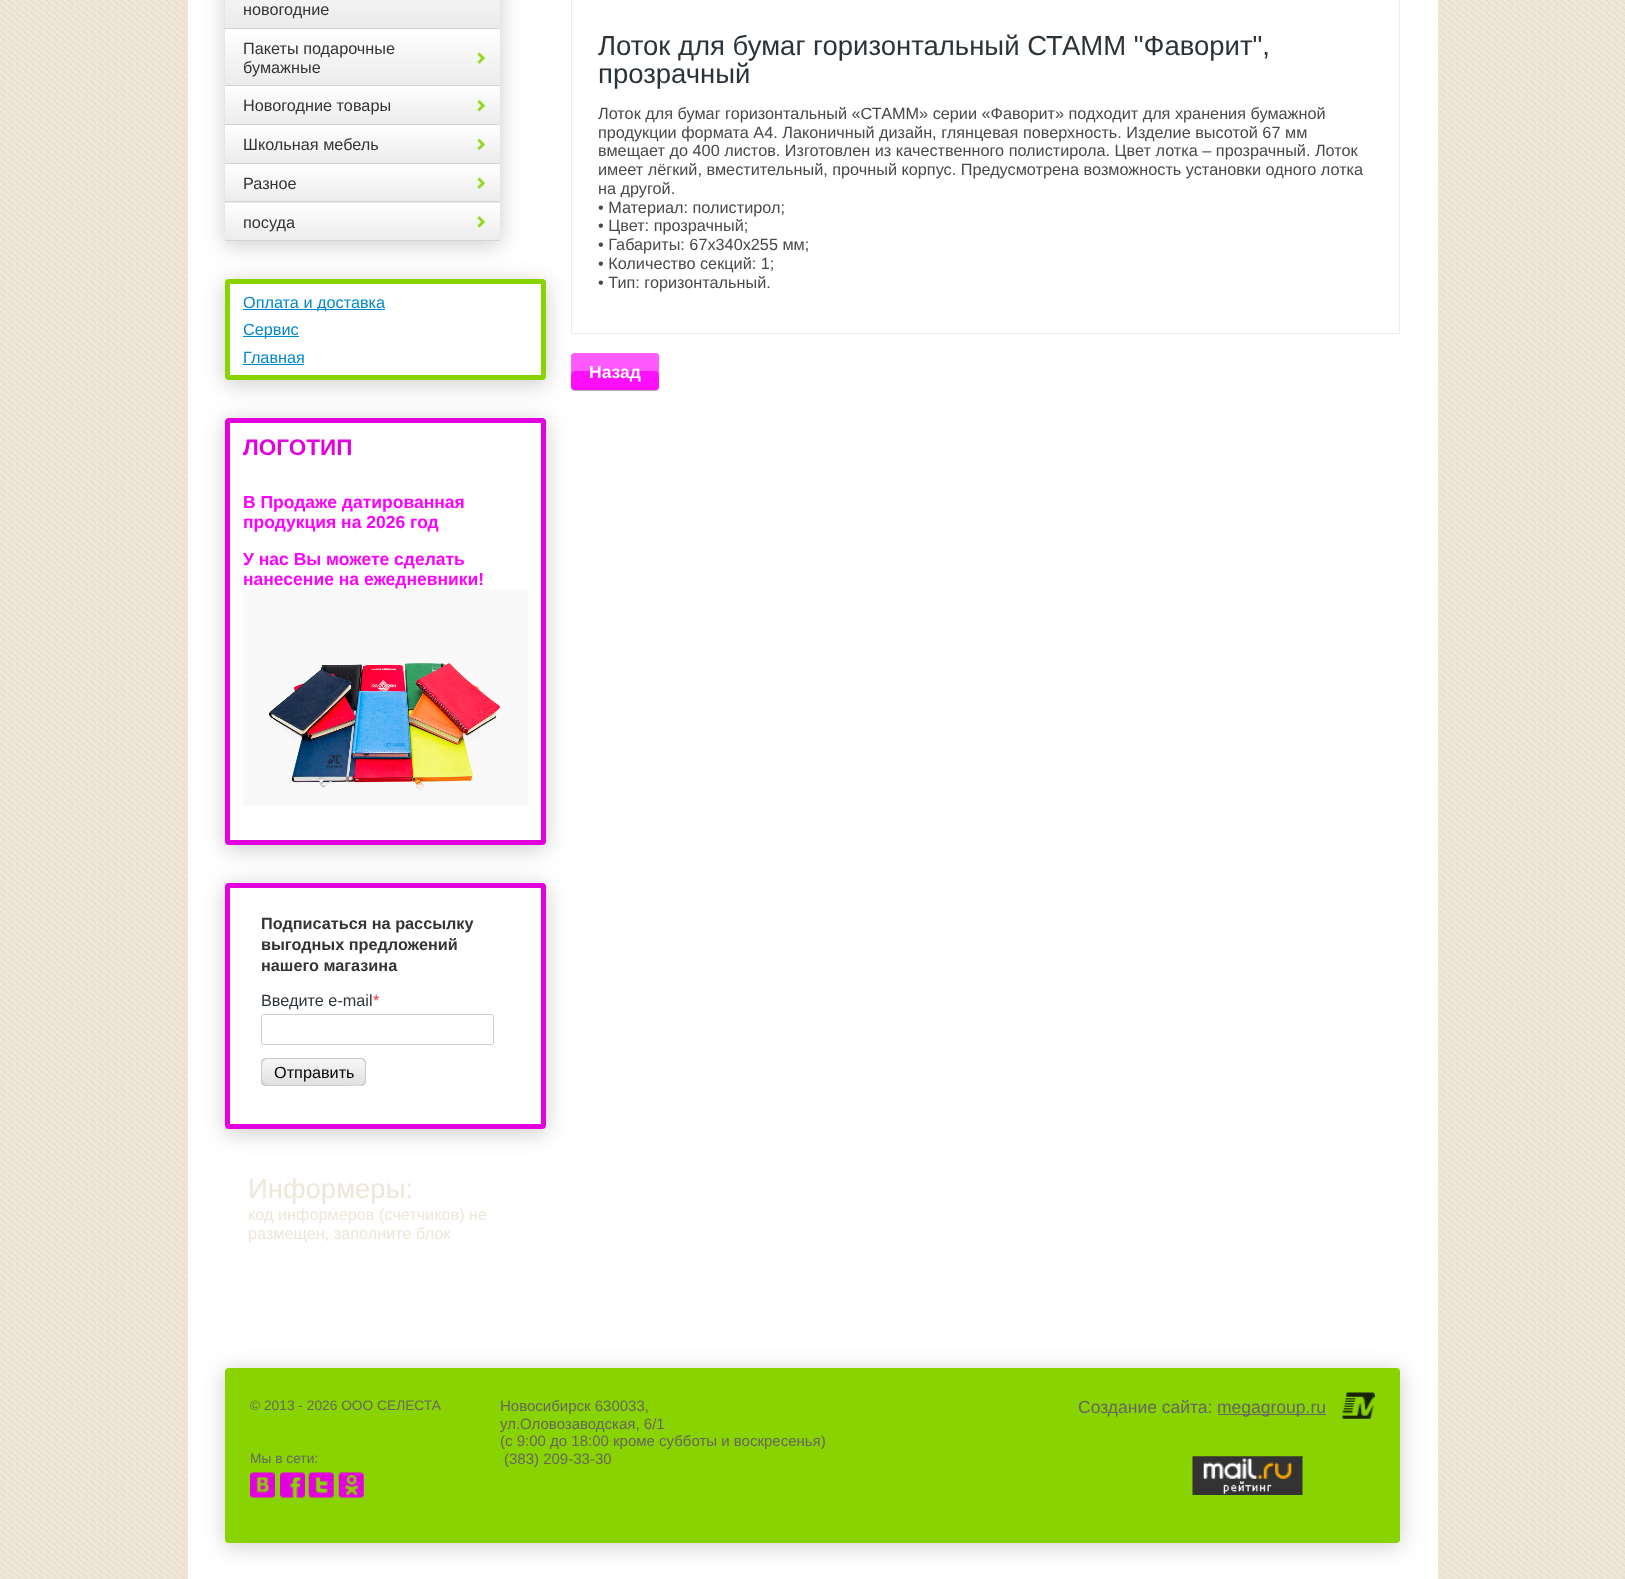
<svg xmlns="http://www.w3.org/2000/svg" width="1625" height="1579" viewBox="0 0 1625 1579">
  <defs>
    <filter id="blur1" x="-50%" y="-200%" width="200%" height="500%"><feGaussianBlur stdDeviation="11"/></filter>
    <linearGradient id="g1" gradientUnits="userSpaceOnUse" x1="363" y1="29" x2="363" y2="-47"><stop offset="0" stop-color="#ebebeb"/><stop offset="1" stop-color="#ffffff"/></linearGradient>
    <linearGradient id="g2" gradientUnits="userSpaceOnUse" x1="363" y1="86" x2="363" y2="29"><stop offset="0" stop-color="#ebebeb"/><stop offset="1" stop-color="#ffffff"/></linearGradient>
    <linearGradient id="g3" gradientUnits="userSpaceOnUse" x1="363" y1="125" x2="363" y2="86"><stop offset="0" stop-color="#ebebeb"/><stop offset="1" stop-color="#ffffff"/></linearGradient>
    <linearGradient id="g4" gradientUnits="userSpaceOnUse" x1="363" y1="164" x2="363" y2="125"><stop offset="0" stop-color="#ebebeb"/><stop offset="1" stop-color="#ffffff"/></linearGradient>
    <linearGradient id="g5" gradientUnits="userSpaceOnUse" x1="363" y1="203" x2="363" y2="164"><stop offset="0" stop-color="#ebebeb"/><stop offset="1" stop-color="#ffffff"/></linearGradient>
    <linearGradient id="g6" gradientUnits="userSpaceOnUse" x1="363" y1="241" x2="363" y2="203"><stop offset="0" stop-color="#ebebeb"/><stop offset="1" stop-color="#ffffff"/></linearGradient>
    <clipPath id="clip1"><path d="M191 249H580V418H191ZM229 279H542C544 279 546 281 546 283V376C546 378 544 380 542 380H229C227 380 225 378 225 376V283C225 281 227 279 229 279Z" clip-rule="evenodd"/></clipPath>
    <clipPath id="clip2"><path d="M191 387H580V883H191ZM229 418H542C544 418 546 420 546 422V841C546 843 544 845 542 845H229C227 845 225 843 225 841V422C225 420 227 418 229 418Z" clip-rule="evenodd"/></clipPath>
    <clipPath id="clip3"><path d="M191 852H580V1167H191ZM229 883H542C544 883 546 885 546 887V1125C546 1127 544 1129 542 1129H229C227 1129 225 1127 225 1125V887C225 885 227 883 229 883Z" clip-rule="evenodd"/></clipPath>
    <linearGradient id="g7" gradientUnits="userSpaceOnUse" x1="314" y1="1058" x2="314" y2="1086"><stop offset="0" stop-color="#f8f8f8"/><stop offset="1" stop-color="#dfdfdf"/></linearGradient>
    <filter id="blur2" x="-50%" y="-200%" width="200%" height="500%"><feGaussianBlur stdDeviation="0.5"/></filter>
    <linearGradient id="g8" gradientUnits="userSpaceOnUse" x1="615" y1="353" x2="615" y2="390"><stop offset="0" stop-color="#ff16fc"/><stop offset="1" stop-color="#ff0cfc"/></linearGradient>
  </defs>
  <rect width="100%" height="100%" fill="#efe6d7"/>
  <image x="0" y="0" width="1625" height="1579" href="img1.png"/>
  <rect x="188" y="0" width="1250" height="1579" fill="#ffffff"/>
  <rect x="225" y="-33" width="275" height="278" fill="#000000" fill-opacity="0.2" filter="url(#blur1)"/>
  <rect x="225" y="0" width="275" height="28" fill="url(#g1)"/>
  <rect x="225" y="28" width="275" height="1" fill="#d4d4d4"/>
  <text x="243" y="15" font-family="Liberation Sans" font-size="16.25" fill="#333333">новогодние</text>
  <rect x="225" y="29" width="275" height="56" fill="url(#g2)"/>
  <rect x="225" y="85" width="275" height="1" fill="#d4d4d4"/>
  <image x="477" y="52" width="8" height="12" href="img2.png"/>
  <text x="243" y="54" font-family="Liberation Sans" font-size="16.25" fill="#333333">Пакеты подарочные</text>
  <text x="243" y="73" font-family="Liberation Sans" font-size="16.25" fill="#333333">бумажные</text>
  <rect x="225" y="86" width="275" height="38" fill="url(#g3)"/>
  <rect x="225" y="124" width="275" height="1" fill="#d4d4d4"/>
  <image x="477" y="100" width="8" height="12" href="img3.png"/>
  <text x="243" y="111" font-family="Liberation Sans" font-size="16.25" fill="#333333">Новогодние товары</text>
  <rect x="225" y="125" width="275" height="38" fill="url(#g4)"/>
  <rect x="225" y="163" width="275" height="1" fill="#d4d4d4"/>
  <image x="477" y="138" width="8" height="12" href="img4.png"/>
  <text x="243" y="150" font-family="Liberation Sans" font-size="16.25" fill="#333333">Школьная мебель</text>
  <rect x="225" y="164" width="275" height="39" fill="url(#g5)"/>
  <rect x="225" y="201" width="275" height="1" fill="#d4d4d4"/>
  <image x="477" y="177" width="8" height="12" href="img5.png"/>
  <text x="243" y="189" font-family="Liberation Sans" font-size="16.25" fill="#333333">Разное</text>
  <rect x="225" y="203" width="275" height="37" fill="url(#g6)"/>
  <rect x="225" y="240" width="275" height="1" fill="#d4d4d4"/>
  <image x="477" y="216" width="8" height="12" href="img6.png"/>
  <text x="243" y="228" font-family="Liberation Sans" font-size="16.25" fill="#333333">посуда</text>
  <rect x="571.5" y="-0.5" width="828" height="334" fill="none" stroke="#e7ebee"/>
  <g clip-path="url(#clip1)">
    <rect x="225" y="283" width="321" height="101" rx="4" fill="#000000" fill-opacity="0.2" filter="url(#blur1)"/>
  </g>
  <rect x="227.5" y="281.5" width="316" height="96" rx="1.5" fill="none" stroke="#89d300" stroke-width="5"/>
  <rect x="243" y="309" width="142" height="1" fill="#0088cc"/>
  <text x="243" y="308" font-family="Liberation Sans" font-size="16.25" fill="#0088cc">Оплата и доставка</text>
  <rect x="243" y="336" width="56" height="1" fill="#0088cc"/>
  <text x="243" y="335" font-family="Liberation Sans" font-size="16.25" fill="#0088cc">Сервис</text>
  <text x="243" y="363" font-family="Liberation Sans" font-size="16.25" fill="#0088cc">Главная</text>
  <rect x="243" y="364" width="61" height="1" fill="#0088cc"/>
  <g clip-path="url(#clip2)">
    <rect x="225" y="421" width="321" height="428" rx="4" fill="#000000" fill-opacity="0.2" filter="url(#blur1)"/>
  </g>
  <rect x="227.5" y="420.5" width="316" height="422" rx="1.5" fill="none" stroke="#e200df" stroke-width="5"/>
  <text x="243" y="455" font-family="Liberation Sans" font-size="22.5" font-weight="bold" fill="#e200df">ЛОГОТИП</text>
  <text x="243" y="508" font-family="Liberation Sans" font-size="17.5" font-weight="bold" fill="#ff00ff">В Продаже датированная</text>
  <text x="243" y="528" font-family="Liberation Sans" font-size="17.5" font-weight="bold" fill="#ff00ff">продукция на 2026 год</text>
  <text x="243" y="565" font-family="Liberation Sans" font-size="17.5" font-weight="bold" fill="#ff00ff">У нас Вы можете сделать</text>
  <text x="243" y="585" font-family="Liberation Sans" font-size="17.5" font-weight="bold" fill="#ff00ff">нанесение на ежедневники!</text>
  <image x="243" y="588" width="286" height="218" href="img7.png"/>
  <g clip-path="url(#clip3)">
    <rect x="225" y="886" width="321" height="247" rx="4" fill="#000000" fill-opacity="0.2" filter="url(#blur1)"/>
  </g>
  <rect x="227.5" y="885.5" width="316" height="241" rx="1.5" fill="none" stroke="#e200df" stroke-width="5"/>
  <text x="261" y="929" font-family="Liberation Sans" font-size="16.25" font-weight="bold" fill="#333333">Подписаться на рассылку</text>
  <text x="261" y="950" font-family="Liberation Sans" font-size="16.25" font-weight="bold" fill="#333333">выгодных предложений</text>
  <text x="261" y="971" font-family="Liberation Sans" font-size="16.25" font-weight="bold" fill="#333333">нашего магазина</text>
  <text x="261" y="1006" font-family="Liberation Sans" font-size="16.25" fill="#2b333a">Введите e-mail</text>
  <text x="373" y="1006" font-family="Liberation Sans" font-size="16.25" fill="#eb3c3c">*</text>
  <rect x="261.5" y="1014.5" width="232" height="30" rx="2" fill="none" stroke="#cccccc"/>
  <rect x="261" y="1058" width="105" height="28" rx="5" fill="url(#g7)"/>
  <path d="M262 1060C261 1061 261 1062 261 1063V1081C261 1084 263 1086 266 1086H361C362 1086 364 1085 365 1085C359 1087 352 1085 346 1085H284C283 1085 264 1088 262 1081Z" fill="#cccccc"/>
  <path d="M265 1059H360C363 1059 365 1061 365 1064V1082V1085C365 1084 366 1082 366 1081V1063C366 1060 364 1058 361 1058H266C265 1058 263 1059 262 1060Z" fill="#cccccc"/>
  <path d="M262 1084C263 1085 265 1086 266 1086H361C364 1086 366 1084 366 1081V1063C366 1062 366 1061 365 1060V1081C364 1089 345 1085 344 1085H265Z" fill="#cccccc"/>
  <path d="M268 1059H362H365C364 1059 362 1058 361 1058H266C263 1058 261 1060 261 1063V1081C261 1083 262 1084 263 1085C261 1082 262 1077 262 1073C262 1068 260 1059 268 1059Z" fill="#cccccc"/>
  <text x="274" y="1078" font-family="Liberation Sans" font-size="16.25" fill="#040404">Отправить</text>
  <text x="248" y="1198" font-family="Liberation Sans" font-size="27.5" fill="#efe6d7">Информеры:</text>
  <text x="248" y="1220" font-family="Liberation Sans" font-size="16.25" fill="#efe6d7">код информеров (счетчиков) не</text>
  <text x="248" y="1239" font-family="Liberation Sans" font-size="16.25" fill="#efe6d7">размещен, заполните блок</text>
  <text x="598" y="55" font-family="Liberation Sans" font-size="27.5" fill="#2b333a">Лоток для бумаг горизонтальный СТАММ "Фаворит",</text>
  <text x="598" y="83" font-family="Liberation Sans" font-size="27.5" fill="#2b333a">прозрачный</text>
  <text x="598" y="119" font-family="Liberation Sans" font-size="16.25" fill="#494949">Лоток для бумаг горизонтальный «СТАММ» серии «Фаворит» подходит для хранения бумажной</text>
  <text x="598" y="138" font-family="Liberation Sans" font-size="16.25" fill="#494949">продукции формата А4. Лаконичный дизайн, глянцевая поверхность. Изделие высотой 67 мм</text>
  <text x="598" y="156" font-family="Liberation Sans" font-size="16.25" fill="#494949">вмещает до 400 листов. Изготовлен из качественного полистирола. Цвет лотка – прозрачный. Лоток</text>
  <text x="598" y="175" font-family="Liberation Sans" font-size="16.25" fill="#494949">имеет лёгкий, вместительный, прочный корпус. Предусмотрена возможность установки одного лотка</text>
  <text x="598" y="194" font-family="Liberation Sans" font-size="16.25" fill="#494949">на другой.</text>
  <text x="598" y="213" font-family="Liberation Sans" font-size="16.25" fill="#494949">• Материал: полистирол;</text>
  <text x="598" y="231" font-family="Liberation Sans" font-size="16.25" fill="#494949">• Цвет: прозрачный;</text>
  <text x="598" y="250" font-family="Liberation Sans" font-size="16.25" fill="#494949">• Габариты: 67х340х255 мм;</text>
  <text x="598" y="269" font-family="Liberation Sans" font-size="16.25" fill="#494949">• Количество секций: 1;</text>
  <text x="598" y="288" font-family="Liberation Sans" font-size="16.25" fill="#494949">• Тип: горизонтальный.</text>
  <rect x="571" y="354" width="88" height="37" rx="4" fill="#000000" fill-opacity="0.3" filter="url(#blur2)"/>
  <rect x="571" y="353" width="88" height="37" rx="4" fill="url(#g8)"/>
  <path d="M575 371H655C657 371 659 373 659 375V357C659 355 657 353 655 353H575C573 353 571 355 571 357V375C571 373 573 371 575 371Z" fill="#ffffff" fill-opacity="0.3"/>
  <text x="589" y="378" font-family="Liberation Sans" font-size="17.5" font-weight="bold" fill="#ffffff">Назад</text>
  <rect x="225" y="1371" width="1175" height="175" rx="4" fill="#000000" fill-opacity="0.2" filter="url(#blur1)"/>
  <rect x="225" y="1368" width="1175" height="175" rx="4" fill="#89d300"/>
  <text x="250" y="1410" font-family="Liberation Sans" font-size="13.75" fill="#666666">© 2013 - 2026 ООО СЕЛЕСТА</text>
  <text x="250" y="1463" font-family="Liberation Sans" font-size="13.75" fill="#666666">Мы в сети:</text>
  <image x="250" y="1472" width="25" height="26" href="img8.png"/>
  <image x="280" y="1472" width="25" height="26" href="img9.png"/>
  <image x="308" y="1472" width="26" height="26" href="img10.png"/>
  <image x="338" y="1472" width="26" height="26" href="img11.png"/>
  <text x="500" y="1411" font-family="Liberation Sans" font-size="15" fill="#666666">Новосибирск 630033,</text>
  <text x="500" y="1429" font-family="Liberation Sans" font-size="15" fill="#666666">ул.Оловозаводская, 6/1</text>
  <text x="500" y="1446" font-family="Liberation Sans" font-size="15" fill="#666666">(с 9:00 до 18:00 кроме субботы и воскресенья)</text>
  <text x="504" y="1464" font-family="Liberation Sans" font-size="15" fill="#666666">(383) 209-33-30</text>
  <image x="1342" y="1392" width="33" height="27" href="img12.png"/>
  <text x="1078" y="1413" font-family="Liberation Sans" font-size="17.5" fill="#666666">Создание сайта:</text>
  <rect x="1218" y="1414" width="108" height="1" fill="#666666"/>
  <text x="1217" y="1413" font-family="Liberation Sans" font-size="17.5" fill="#666666">megagroup.ru</text>
  <image x="1192" y="1456" width="111" height="39" href="img13.png"/>
</svg>
